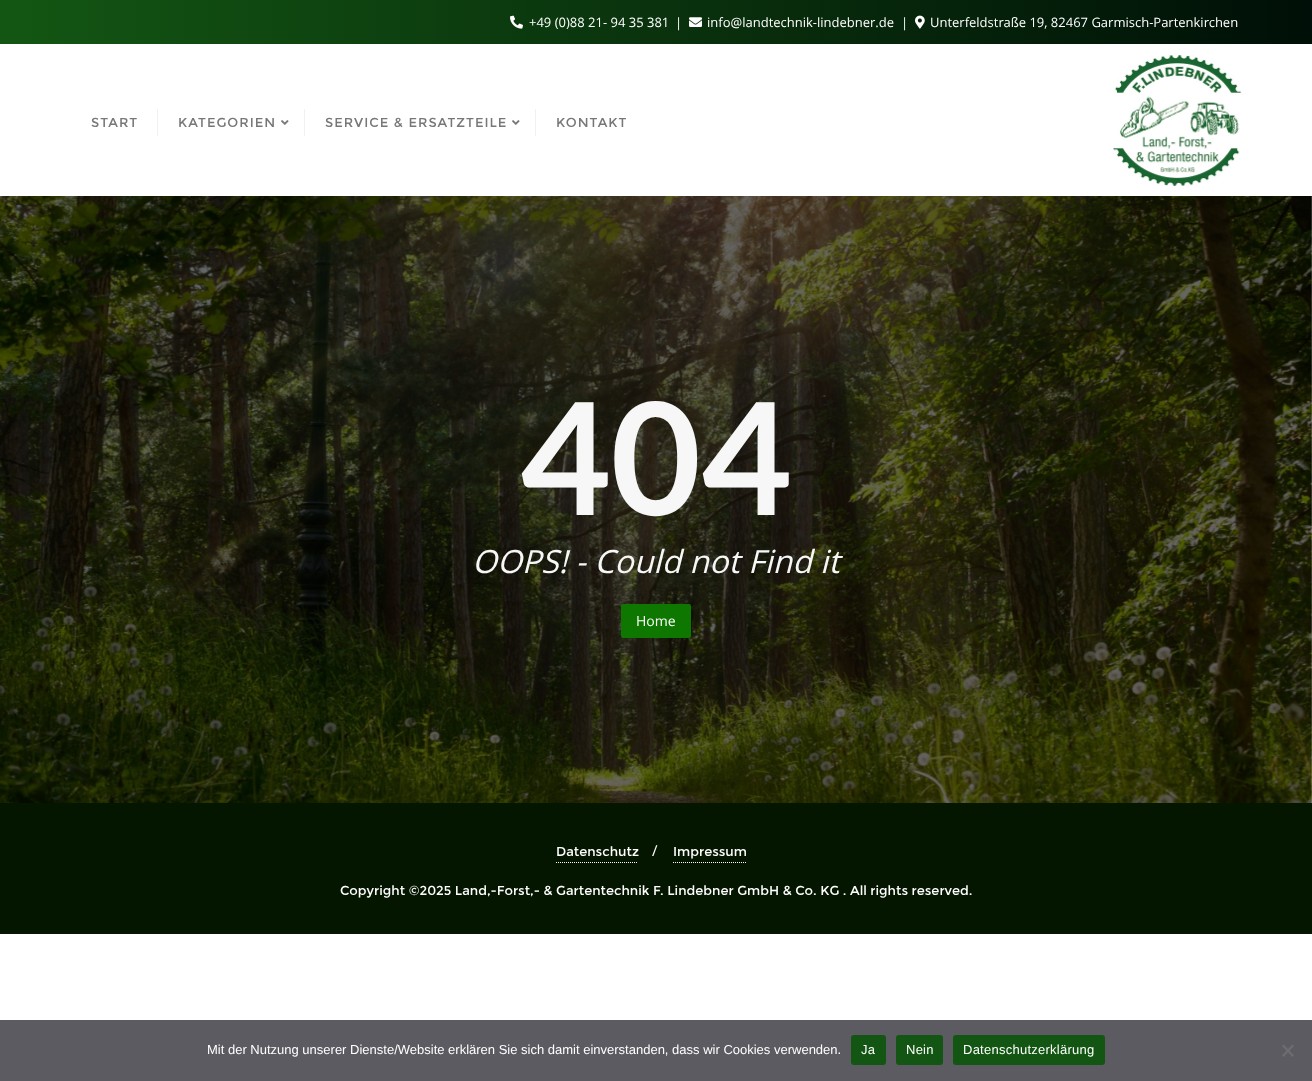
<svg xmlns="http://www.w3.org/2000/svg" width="1312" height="1081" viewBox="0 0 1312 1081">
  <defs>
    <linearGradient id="g1" gradientUnits="userSpaceOnUse" x1="0" y1="22" x2="1312" y2="22"><stop offset="0" stop-color="#135613"/><stop offset="1" stop-color="#000f07"/></linearGradient>
  </defs>
  <rect width="100%" height="100%" fill="#ffffff"/>
  <rect x="0" y="0" width="1312" height="44" fill="url(#g1)"/>
  <image x="510" y="15" width="13" height="14" href="img1.png"/>
  <text x="529" y="27" font-family="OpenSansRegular" font-size="13" fill="#ffffff">+49 (0)88 21- 94 35 381</text>
  <text x="675" y="27" font-family="OpenSansRegular" font-size="13" fill="#ffffff">|</text>
  <image x="689" y="17" width="13" height="10" href="img2.png"/>
  <text x="707" y="27" font-family="OpenSansRegular" font-size="13" fill="#ffffff">info@landtechnik-lindebner.de</text>
  <text x="901" y="27" font-family="OpenSansRegular" font-size="13" fill="#ffffff">|</text>
  <image x="915" y="15" width="10" height="14" href="img3.png"/>
  <text x="930" y="27" font-family="OpenSansRegular" font-size="13" fill="#ffffff">Unterfeldstraße 19, 82467 Garmisch-Partenkirchen</text>
  <text x="91" y="127" font-family="Montserrat" font-size="13" letter-spacing="1" fill="#777777">START</text>
  <rect x="157" y="109" width="1" height="27" fill="#f1f1f1"/>
  <text x="178" y="127" font-family="Montserrat" font-size="13" letter-spacing="1" fill="#777777">KATEGORIEN</text>
  <image x="281" y="120" width="8" height="5" href="img4.png"/>
  <rect x="304" y="109" width="1" height="27" fill="#f1f1f1"/>
  <text x="325" y="127" font-family="Montserrat" font-size="13" letter-spacing="1" fill="#777777">SERVICE &amp; ERSATZTEILE</text>
  <image x="512" y="120" width="8" height="5" href="img4.png"/>
  <rect x="535" y="109" width="1" height="27" fill="#f1f1f1"/>
  <text x="556" y="127" font-family="Montserrat" font-size="13" letter-spacing="1" fill="#777777">KONTAKT</text>
  <image x="1113" y="55" width="128" height="131" href="img5.png"/>
  <image x="0" y="196" width="1312" height="607" href="img6.png"/>
  <text x="520" y="515" font-family="Lato" font-size="156" font-weight="bold" fill="#f7f7f7">404</text>
  <text x="472" y="573" font-family="OpenSansRegular" font-size="32" font-style="italic" fill="#f7f7f7">OOPS! - Could not Find it</text>
  <rect x="621" y="604" width="70" height="34" rx="2" fill="#0d7700"/>
  <text x="636" y="626" font-family="OpenSansRegular" font-size="14" fill="#ffffff">Home</text>
  <rect x="0" y="803" width="1312" height="131" fill="#051600"/>
  <path d="M556 862.5H638" fill="none" stroke="#ffffff" stroke-dasharray="1 1"/>
  <text x="556" y="856" font-family="Montserrat" font-size="13" fill="#ffffff">Datenschutz</text>
  <text x="652" y="856" font-family="OpenSansRegular" font-size="15" fill="#ffffff">/</text>
  <path d="M673 862.5H746" fill="none" stroke="#ffffff" stroke-dasharray="1 1"/>
  <text x="673" y="856" font-family="Montserrat" font-size="13" fill="#ffffff">Impressum</text>
  <text x="340" y="895" font-family="Montserrat" font-size="13" fill="#ffffff">Copyright ©2025 Land,-Forst,- &amp; Gartentechnik F. Lindebner GmbH &amp; Co. KG . All rights reserved.</text>
  <rect x="0" y="1020" width="1312" height="61" fill="#5b5b61"/>
  <text x="207" y="1054" font-family="Liberation Sans" font-size="13" fill="#ffffff">Mit der Nutzung unserer Dienste/Website erklären Sie sich damit einverstanden, dass wir Cookies verwenden.</text>
  <rect x="851" y="1035" width="35" height="30" rx="3" fill="#135613"/>
  <text x="861" y="1054" font-family="Liberation Sans" font-size="13" letter-spacing="0.25" fill="#ffffff">Ja</text>
  <rect x="896" y="1035" width="47" height="30" rx="3" fill="#135613"/>
  <text x="906" y="1054" font-family="Liberation Sans" font-size="13" letter-spacing="0.25" fill="#ffffff">Nein</text>
  <rect x="953" y="1035" width="152" height="30" rx="3" fill="#135613"/>
  <text x="963" y="1054" font-family="Liberation Sans" font-size="13" letter-spacing="0.25" fill="#ffffff">Datenschutzerklärung</text>
  <path d="M1292.5 1044.5L1294 1046L1283.5 1057L1282 1055.5Z" fill="#6e6e71"/>
  <path d="M1282 1046L1283.5 1044.5L1294 1055.5L1292.5 1057Z" fill="#6e6e71"/>
</svg>
